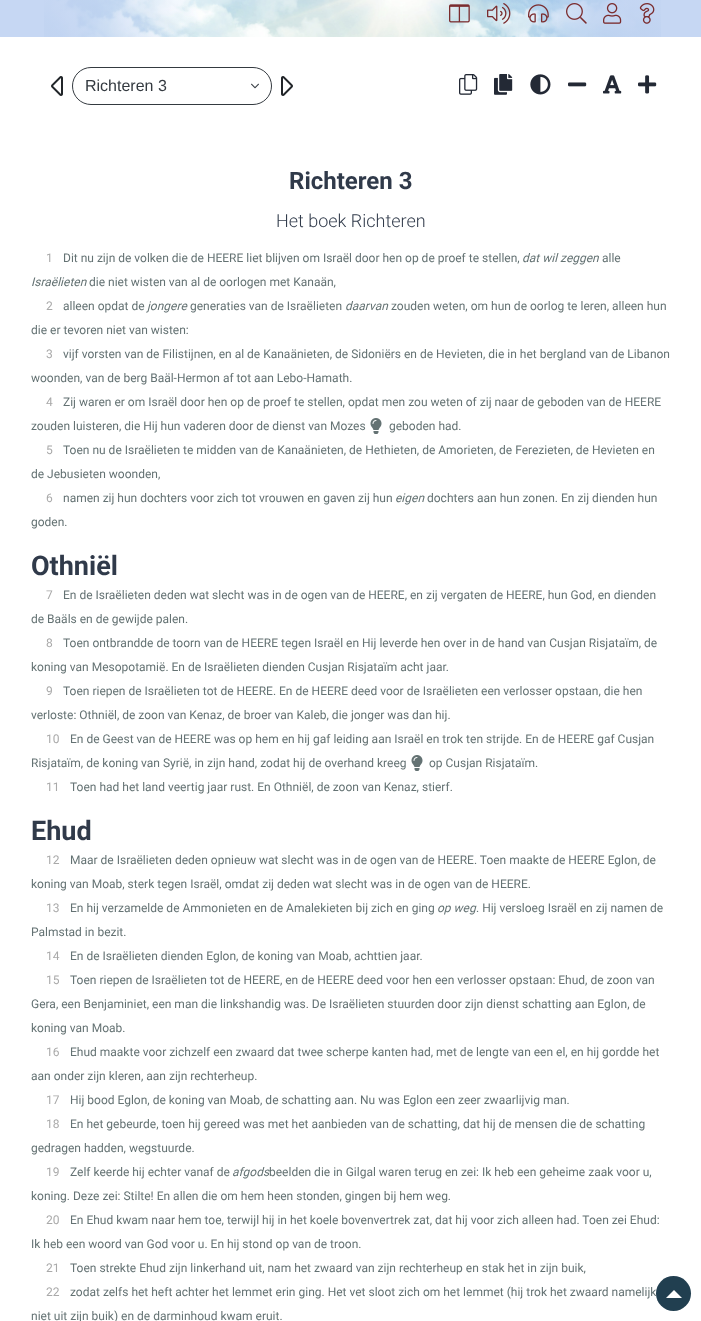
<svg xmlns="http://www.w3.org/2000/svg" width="701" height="1321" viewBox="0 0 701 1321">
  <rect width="100%" height="100%" fill="#c6d7f3"/>
  <image x="44" y="0" width="617" height="37" href="img1.png"/>
  <rect x="0" y="37" width="701" height="1284" fill="#ffffff"/>
  <image x="449" y="4" width="21" height="19" href="img2.png"/>
  <image x="487" y="3" width="24" height="21" href="img3.png"/>
  <image x="528" y="4" width="21" height="19" href="img4.png"/>
  <image x="566" y="3" width="21" height="21" href="img5.png"/>
  <image x="603" y="3" width="19" height="21" href="img6.png"/>
  <image x="639" y="3" width="16" height="21" href="img7.png"/>
  <image x="51" y="76" width="12" height="20" href="img8.png"/>
  <rect x="72.5" y="67.5" width="199" height="37" rx="18.5" fill="none" stroke="#343a40"/>
  <text x="85" y="91" font-family="Liberation Sans" font-size="16" fill="#343a40">Richteren 3</text>
  <image x="251" y="83" width="8" height="6" href="img9.png"/>
  <image x="281" y="76" width="12" height="20" href="img10.png"/>
  <image x="459" y="74" width="19" height="21" href="img11.png"/>
  <image x="494" y="74" width="19" height="21" href="img12.png"/>
  <image x="530" y="74" width="21" height="21" href="img13.png"/>
  <image x="568" y="82" width="19" height="5" href="img14.png"/>
  <image x="603" y="75" width="19" height="19" href="img15.png"/>
  <image x="638" y="75" width="19" height="19" href="img16.png"/>
  <text x="289" y="189" font-family="Roboto" font-size="24" font-weight="bold" fill="#303a4a">Richteren 3</text>
  <text x="276" y="227" font-family="Roboto" font-size="18" font-weight="300" fill="#303a4a">Het boek Richteren</text>
  <text x="46" y="262" font-family="Roboto" font-size="12" fill="#a9a9a9">1</text>
  <text x="63" y="262" font-family="Roboto" font-size="12" fill="#647273">Dit nu zijn de volken die de HEERE liet blijven om Israël door hen op de proef te stellen,</text>
  <text x="522" y="262" font-family="Roboto" font-size="12" font-style="italic" fill="#647273">dat wil zeggen</text>
  <text x="602" y="262" font-family="Roboto" font-size="12" fill="#647273">alle</text>
  <text x="31" y="286" font-family="Roboto" font-size="12" font-style="italic" fill="#647273">Israëlieten</text>
  <text x="89" y="286" font-family="Roboto" font-size="12" fill="#647273">die niet wisten van al de oorlogen met Kanaän,</text>
  <text x="46" y="310" font-family="Roboto" font-size="12" fill="#a9a9a9">2</text>
  <text x="63" y="310" font-family="Roboto" font-size="12" fill="#647273">alleen opdat de</text>
  <text x="147" y="310" font-family="Roboto" font-size="12" font-style="italic" fill="#647273">jongere</text>
  <text x="190" y="310" font-family="Roboto" font-size="12" fill="#647273">generaties van de Israëlieten</text>
  <text x="345" y="310" font-family="Roboto" font-size="12" font-style="italic" fill="#647273">daarvan</text>
  <text x="391" y="310" font-family="Roboto" font-size="12" fill="#647273">zouden weten, om hun de oorlog te leren, alleen hun</text>
  <text x="31" y="334" font-family="Roboto" font-size="12" fill="#647273">die er tevoren niet van wisten:</text>
  <text x="46" y="358" font-family="Roboto" font-size="12" fill="#a9a9a9">3</text>
  <text x="63" y="358" font-family="Roboto" font-size="12" fill="#647273">vijf vorsten van de Filistijnen, en al de Kanaänieten, de Sidoniërs en de Hevieten, die in het bergland van de Libanon</text>
  <text x="31" y="382" font-family="Roboto" font-size="12" fill="#647273">woonden, van de berg Baäl-Hermon af tot aan Lebo-Hamath.</text>
  <text x="46" y="406" font-family="Roboto" font-size="12" fill="#a9a9a9">4</text>
  <text x="63" y="406" font-family="Roboto" font-size="12" fill="#647273">Zij waren er om Israël door hen op de proef te stellen, opdat men zou weten of zij naar de geboden van de HEERE</text>
  <text x="31" y="430" font-family="Roboto" font-size="12" fill="#647273">zouden luisteren, die Hij hun vaderen door de dienst van Mozes</text>
  <image x="370" y="418" width="12" height="16" href="img17.png"/>
  <text x="389" y="430" font-family="Roboto" font-size="12" fill="#647273">geboden had.</text>
  <text x="46" y="454" font-family="Roboto" font-size="12" fill="#a9a9a9">5</text>
  <text x="63" y="454" font-family="Roboto" font-size="12" fill="#647273">Toen nu de Israëlieten te midden van de Kanaänieten, de Hethieten, de Amorieten, de Ferezieten, de Hevieten en</text>
  <text x="31" y="478" font-family="Roboto" font-size="12" fill="#647273">de Jebusieten woonden,</text>
  <text x="46" y="502" font-family="Roboto" font-size="12" fill="#a9a9a9">6</text>
  <text x="63" y="502" font-family="Roboto" font-size="12" fill="#647273">namen zij hun dochters voor zich tot vrouwen en gaven zij hun</text>
  <text x="395" y="502" font-family="Roboto" font-size="12" font-style="italic" fill="#647273">eigen</text>
  <text x="427" y="502" font-family="Roboto" font-size="12" fill="#647273">dochters aan hun zonen. En zij dienden hun</text>
  <text x="31" y="526" font-family="Roboto" font-size="12" fill="#647273">goden.</text>
  <text x="31" y="575" font-family="Roboto" font-size="27" font-weight="bold" fill="#303a4a">Othniël</text>
  <text x="46" y="599" font-family="Roboto" font-size="12" fill="#a9a9a9">7</text>
  <text x="63" y="599" font-family="Roboto" font-size="12" fill="#647273">En de Israëlieten deden wat slecht was in de ogen van de HEERE, en zij vergaten de HEERE, hun God, en dienden</text>
  <text x="31" y="623" font-family="Roboto" font-size="12" fill="#647273">de Baäls en de gewijde palen.</text>
  <text x="46" y="647" font-family="Roboto" font-size="12" fill="#a9a9a9">8</text>
  <text x="63" y="647" font-family="Roboto" font-size="12" fill="#647273">Toen ontbrandde de toorn van de HEERE tegen Israël en Hij leverde hen over in de hand van Cusjan Risjataïm, de</text>
  <text x="31" y="671" font-family="Roboto" font-size="12" fill="#647273">koning van Mesopotamië. En de Israëlieten dienden Cusjan Risjataïm acht jaar.</text>
  <text x="46" y="695" font-family="Roboto" font-size="12" fill="#a9a9a9">9</text>
  <text x="63" y="695" font-family="Roboto" font-size="12" fill="#647273">Toen riepen de Israëlieten tot de HEERE. En de HEERE deed voor de Israëlieten een verlosser opstaan, die hen</text>
  <text x="31" y="719" font-family="Roboto" font-size="12" fill="#647273">verloste: Othniël, de zoon van Kenaz, de broer van Kaleb, die jonger was dan hij.</text>
  <text x="46" y="743" font-family="Roboto" font-size="12" fill="#a9a9a9">10</text>
  <text x="70" y="743" font-family="Roboto" font-size="12" fill="#647273">En de Geest van de HEERE was op hem en hij gaf leiding aan Israël en trok ten strijde. En de HEERE gaf Cusjan</text>
  <text x="31" y="767" font-family="Roboto" font-size="12" fill="#647273">Risjataïm, de koning van Syrië, in zijn hand, zodat hij de overhand kreeg</text>
  <image x="411" y="755" width="12" height="16" href="img17.png"/>
  <text x="429" y="767" font-family="Roboto" font-size="12" fill="#647273">op Cusjan Risjataïm.</text>
  <text x="46" y="791" font-family="Roboto" font-size="12" fill="#a9a9a9">11</text>
  <text x="70" y="791" font-family="Roboto" font-size="12" fill="#647273">Toen had het land veertig jaar rust. En Othniël, de zoon van Kenaz, stierf.</text>
  <text x="31" y="840" font-family="Roboto" font-size="27" font-weight="bold" fill="#303a4a">Ehud</text>
  <text x="46" y="864" font-family="Roboto" font-size="12" fill="#a9a9a9">12</text>
  <text x="70" y="864" font-family="Roboto" font-size="12" fill="#647273">Maar de Israëlieten deden opnieuw wat slecht was in de ogen van de HEERE. Toen maakte de HEERE Eglon, de</text>
  <text x="31" y="888" font-family="Roboto" font-size="12" fill="#647273">koning van Moab, sterk tegen Israël, omdat zij deden wat slecht was in de ogen van de HEERE.</text>
  <text x="46" y="912" font-family="Roboto" font-size="12" fill="#a9a9a9">13</text>
  <text x="70" y="912" font-family="Roboto" font-size="12" fill="#647273">En hij verzamelde de Ammonieten en de Amalekieten bij zich en ging</text>
  <text x="437" y="912" font-family="Roboto" font-size="12" font-style="italic" fill="#647273">op weg</text>
  <text x="476" y="912" font-family="Roboto" font-size="12" fill="#647273">. Hij versloeg Israël en zij namen de</text>
  <text x="31" y="936" font-family="Roboto" font-size="12" fill="#647273">Palmstad in bezit.</text>
  <text x="46" y="960" font-family="Roboto" font-size="12" fill="#a9a9a9">14</text>
  <text x="70" y="960" font-family="Roboto" font-size="12" fill="#647273">En de Israëlieten dienden Eglon, de koning van Moab, achttien jaar.</text>
  <text x="46" y="984" font-family="Roboto" font-size="12" fill="#a9a9a9">15</text>
  <text x="70" y="984" font-family="Roboto" font-size="12" fill="#647273">Toen riepen de Israëlieten tot de HEERE, en de HEERE deed voor hen een verlosser opstaan: Ehud, de zoon van</text>
  <text x="31" y="1008" font-family="Roboto" font-size="12" fill="#647273">Gera, een Benjaminiet, een man die linkshandig was. De Israëlieten stuurden door zijn dienst schatting aan Eglon, de</text>
  <text x="31" y="1032" font-family="Roboto" font-size="12" fill="#647273">koning van Moab.</text>
  <text x="46" y="1056" font-family="Roboto" font-size="12" fill="#a9a9a9">16</text>
  <text x="70" y="1056" font-family="Roboto" font-size="12" fill="#647273">Ehud maakte voor zichzelf een zwaard dat twee scherpe kanten had, met de lengte van een el, en hij gordde het</text>
  <text x="31" y="1080" font-family="Roboto" font-size="12" fill="#647273">aan onder zijn kleren, aan zijn rechterheup.</text>
  <text x="46" y="1104" font-family="Roboto" font-size="12" fill="#a9a9a9">17</text>
  <text x="70" y="1104" font-family="Roboto" font-size="12" fill="#647273">Hij bood Eglon, de koning van Moab, de schatting aan. Nu was Eglon een zeer zwaarlijvig man.</text>
  <text x="46" y="1128" font-family="Roboto" font-size="12" fill="#a9a9a9">18</text>
  <text x="70" y="1128" font-family="Roboto" font-size="12" fill="#647273">En het gebeurde, toen hij gereed was met het aanbieden van de schatting, dat hij de mensen die de schatting</text>
  <text x="31" y="1152" font-family="Roboto" font-size="12" fill="#647273">gedragen hadden, wegstuurde.</text>
  <text x="46" y="1176" font-family="Roboto" font-size="12" fill="#a9a9a9">19</text>
  <text x="70" y="1176" font-family="Roboto" font-size="12" fill="#647273">Zelf keerde hij echter vanaf de</text>
  <text x="232" y="1176" font-family="Roboto" font-size="12" font-style="italic" fill="#647273">afgods</text>
  <text x="269" y="1176" font-family="Roboto" font-size="12" fill="#647273">beelden die in Gilgal waren terug en zei: Ik heb een geheime zaak voor u,</text>
  <text x="31" y="1200" font-family="Roboto" font-size="12" fill="#647273">koning. Deze zei: Stilte! En allen die om hem heen stonden, gingen bij hem weg.</text>
  <text x="46" y="1224" font-family="Roboto" font-size="12" fill="#a9a9a9">20</text>
  <text x="70" y="1224" font-family="Roboto" font-size="12" fill="#647273">En Ehud kwam naar hem toe, terwijl hij in het koele bovenvertrek zat, dat hij voor zich alleen had. Toen zei Ehud:</text>
  <text x="31" y="1248" font-family="Roboto" font-size="12" fill="#647273">Ik heb een woord van God voor u. En hij stond op van de troon.</text>
  <text x="46" y="1272" font-family="Roboto" font-size="12" fill="#a9a9a9">21</text>
  <text x="70" y="1272" font-family="Roboto" font-size="12" fill="#647273">Toen strekte Ehud zijn linkerhand uit, nam het zwaard van zijn rechterheup en stak het in zijn buik,</text>
  <text x="46" y="1296" font-family="Roboto" font-size="12" fill="#a9a9a9">22</text>
  <text x="70" y="1296" font-family="Roboto" font-size="12" fill="#647273">zodat zelfs het heft achter het lemmet erin ging. Het vet sloot zich om het lemmet (hij trok het zwaard namelijk</text>
  <text x="31" y="1320" font-family="Roboto" font-size="12" fill="#647273">niet uit zijn buik) en de darminhoud kwam eruit.</text>
  <circle cx="673.5" cy="1293.5" r="17.5" fill="#213f50"/>
  <path d="M682 1298H666L674 1290Z" fill="#ffffff"/>
</svg>
